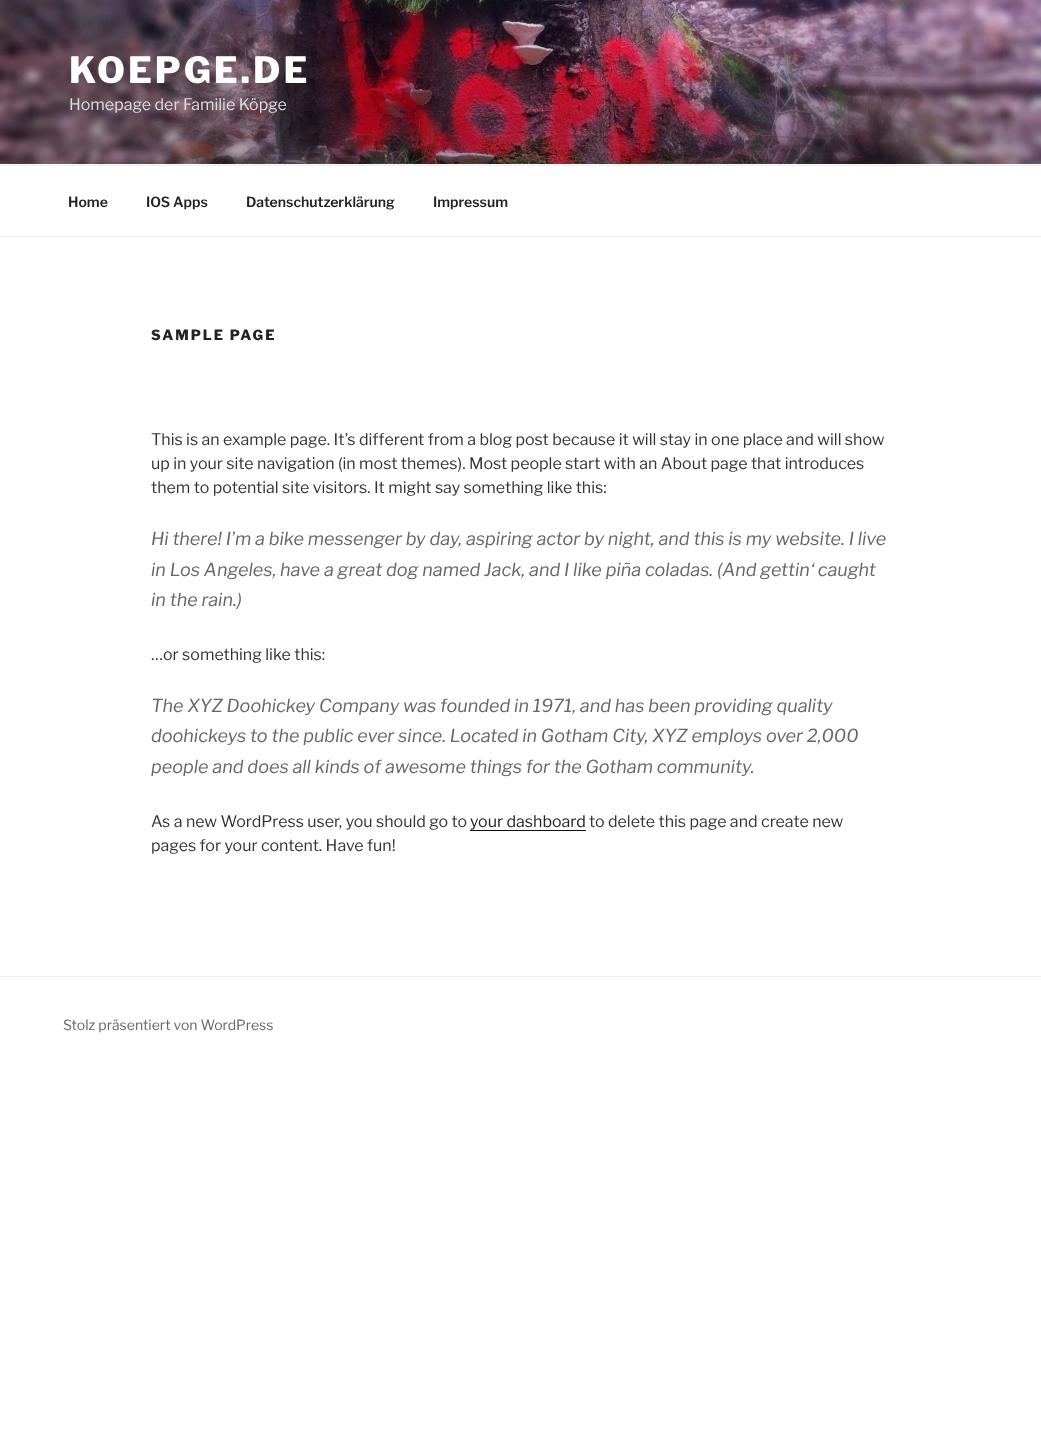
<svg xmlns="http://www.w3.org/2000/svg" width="1041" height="1450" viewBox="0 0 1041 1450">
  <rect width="100%" height="100%" fill="#ffffff"/>
  <rect x="0" y="164" width="1041" height="1" fill="#fafafa"/>
  <image x="0" y="0" width="1041" height="164" href="img1.png"/>
  <text x="69" y="83" font-family="Libre Franklin" font-size="36" font-weight="800" letter-spacing="2.9" fill="#ffffff">KOEPGE.DE</text>
  <text x="69" y="110" font-family="Libre Franklin" font-size="16" fill="#dfdbde">Homepage der Familie Köpge</text>
  <rect x="0" y="165" width="1041" height="1" fill="#eeeeee"/>
  <rect x="0" y="236" width="1041" height="1" fill="#eeeeee"/>
  <text x="68" y="207" font-family="Libre Franklin" font-size="14" font-weight="600" fill="#222222">Home</text>
  <text x="146" y="207" font-family="Libre Franklin" font-size="14" font-weight="600" fill="#222222">IOS Apps</text>
  <text x="246" y="207" font-family="Libre Franklin" font-size="14" font-weight="600" fill="#222222">Datenschutzerklärung</text>
  <text x="433" y="207" font-family="Libre Franklin" font-size="14" font-weight="600" fill="#222222">Impressum</text>
  <text x="151" y="340" font-family="Libre Franklin" font-size="14" font-weight="800" letter-spacing="2" fill="#222222">SAMPLE PAGE</text>
  <text x="151" y="445" font-family="Libre Franklin" font-size="16" fill="#333333">This is an example page. It’s different from a blog post because it will stay in one place and will show</text>
  <text x="151" y="469" font-family="Libre Franklin" font-size="16" fill="#333333">up in your site navigation (in most themes). Most people start with an About page that introduces</text>
  <text x="151" y="493" font-family="Libre Franklin" font-size="16" fill="#333333">them to potential site visitors. It might say something like this:</text>
  <text x="151" y="545" font-family="Libre Franklin" font-size="18" font-style="italic" fill="#666666">Hi there! I’m a bike messenger by day, aspiring actor by night, and this is my website. I live</text>
  <text x="151" y="576" font-family="Libre Franklin" font-size="18" font-style="italic" fill="#666666">in Los Angeles, have a great dog named Jack, and I like piña coladas. (And gettin‘ caught</text>
  <text x="151" y="606" font-family="Libre Franklin" font-size="18" font-style="italic" fill="#666666">in the rain.)</text>
  <text x="151" y="660" font-family="Libre Franklin" font-size="16" fill="#333333">…or something like this:</text>
  <text x="151" y="712" font-family="Libre Franklin" font-size="18" font-style="italic" fill="#666666">The XYZ Doohickey Company was founded in 1971, and has been providing quality</text>
  <text x="151" y="742" font-family="Libre Franklin" font-size="18" font-style="italic" fill="#666666">doohickeys to the public ever since. Located in Gotham City, XYZ employs over 2,000</text>
  <text x="151" y="773" font-family="Libre Franklin" font-size="18" font-style="italic" fill="#666666">people and does all kinds of awesome things for the Gotham community.</text>
  <text x="151" y="827" font-family="Libre Franklin" font-size="16" fill="#333333">As a new WordPress user, you should go to</text>
  <text x="470" y="827" font-family="Libre Franklin" font-size="16" fill="#222222">your dashboard</text>
  <rect x="470" y="830" width="116" height="1" fill="#0f0f0f"/>
  <text x="589" y="827" font-family="Libre Franklin" font-size="16" fill="#333333">to delete this page and create new</text>
  <text x="151" y="851" font-family="Libre Franklin" font-size="16" fill="#333333">pages for your content. Have fun!</text>
  <rect x="0" y="976" width="1041" height="1" fill="#eeeeee"/>
  <text x="63" y="1030" font-family="Libre Franklin" font-size="14" fill="#666666">Stolz präsentiert von WordPress</text>
</svg>
